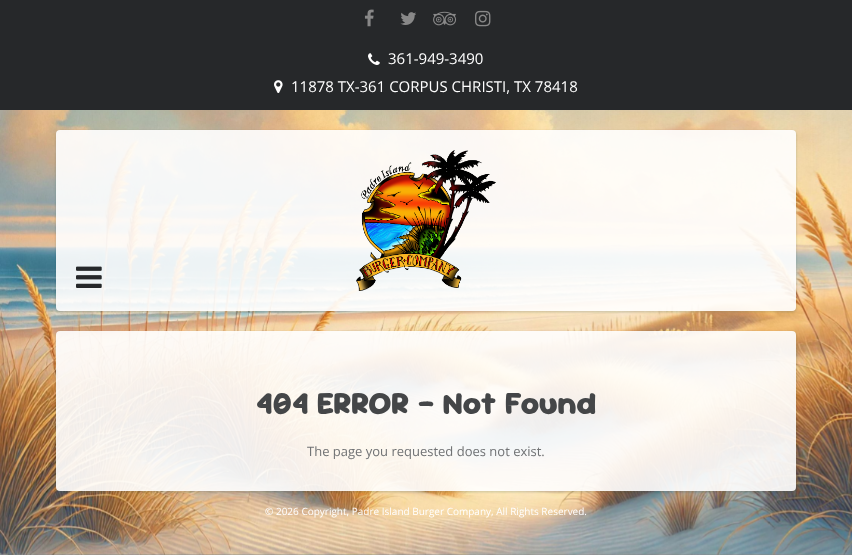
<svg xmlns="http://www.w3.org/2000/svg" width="852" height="555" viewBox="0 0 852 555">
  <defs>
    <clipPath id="clip1"><path d="M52 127H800V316H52ZM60 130H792C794 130 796 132 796 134V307C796 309 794 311 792 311H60C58 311 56 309 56 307V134C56 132 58 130 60 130Z" clip-rule="evenodd"/></clipPath>
    <filter id="blur1" x="-50%" y="-200%" width="200%" height="500%"><feGaussianBlur stdDeviation="1"/></filter>
    <clipPath id="clip2"><path d="M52 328H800V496H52ZM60 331H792C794 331 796 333 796 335V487C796 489 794 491 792 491H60C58 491 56 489 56 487V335C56 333 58 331 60 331Z" clip-rule="evenodd"/></clipPath>
  </defs>
  <rect width="100%" height="100%" fill="#ffffff"/>
  <image x="0" y="110" width="852" height="445" href="img1.png"/>
  <rect x="0" y="0" width="852" height="110" fill="#26282a"/>
  <image x="364" y="9" width="10" height="18" href="img2.png"/>
  <image x="400" y="12" width="16" height="13" href="img3.png"/>
  <image x="433" y="11" width="24" height="15" href="img4.png"/>
  <image x="475" y="10" width="16" height="17" href="img5.png"/>
  <image x="368" y="53" width="12" height="12" href="img6.png"/>
  <text x="388" y="64" font-family="Open Sans" font-size="15" fill="#ffffff">361-949-3490</text>
  <image x="274" y="80" width="9" height="13" href="img7.png"/>
  <text x="291" y="92" font-family="Open Sans" font-size="15" fill="#ffffff">11878 TX-361 CORPUS CHRISTI, TX 78418</text>
  <g clip-path="url(#clip1)">
    <rect x="56" y="131" width="740" height="181" rx="4" fill="#1e4646" fill-opacity="0.23" filter="url(#blur1)"/>
  </g>
  <rect x="56" y="130" width="740" height="181" rx="4" fill="#ffffff" fill-opacity="0.9"/>
  <image x="356" y="150" width="140" height="141" href="img8.png"/>
  <image x="76" y="266" width="26" height="22" href="img9.png"/>
  <g clip-path="url(#clip2)">
    <rect x="56" y="332" width="740" height="160" rx="4" fill="#1e4646" fill-opacity="0.23" filter="url(#blur1)"/>
  </g>
  <rect x="56" y="331" width="740" height="160" rx="4" fill="#ffffff" fill-opacity="0.9"/>
  <text x="256" y="414" font-family="Sour Gummy" font-size="32" font-weight="800" fill="#444648">404 ERROR - Not Found</text>
  <text x="307" y="456" font-family="Open Sans" font-size="13" fill="#707274">The page you requested does not exist.</text>
  <text x="265" y="515" font-family="Open Sans" font-size="10" fill="#ffffff">© 2026 Copyright, Padre Island Burger Company, All Rights Reserved.</text>
</svg>
